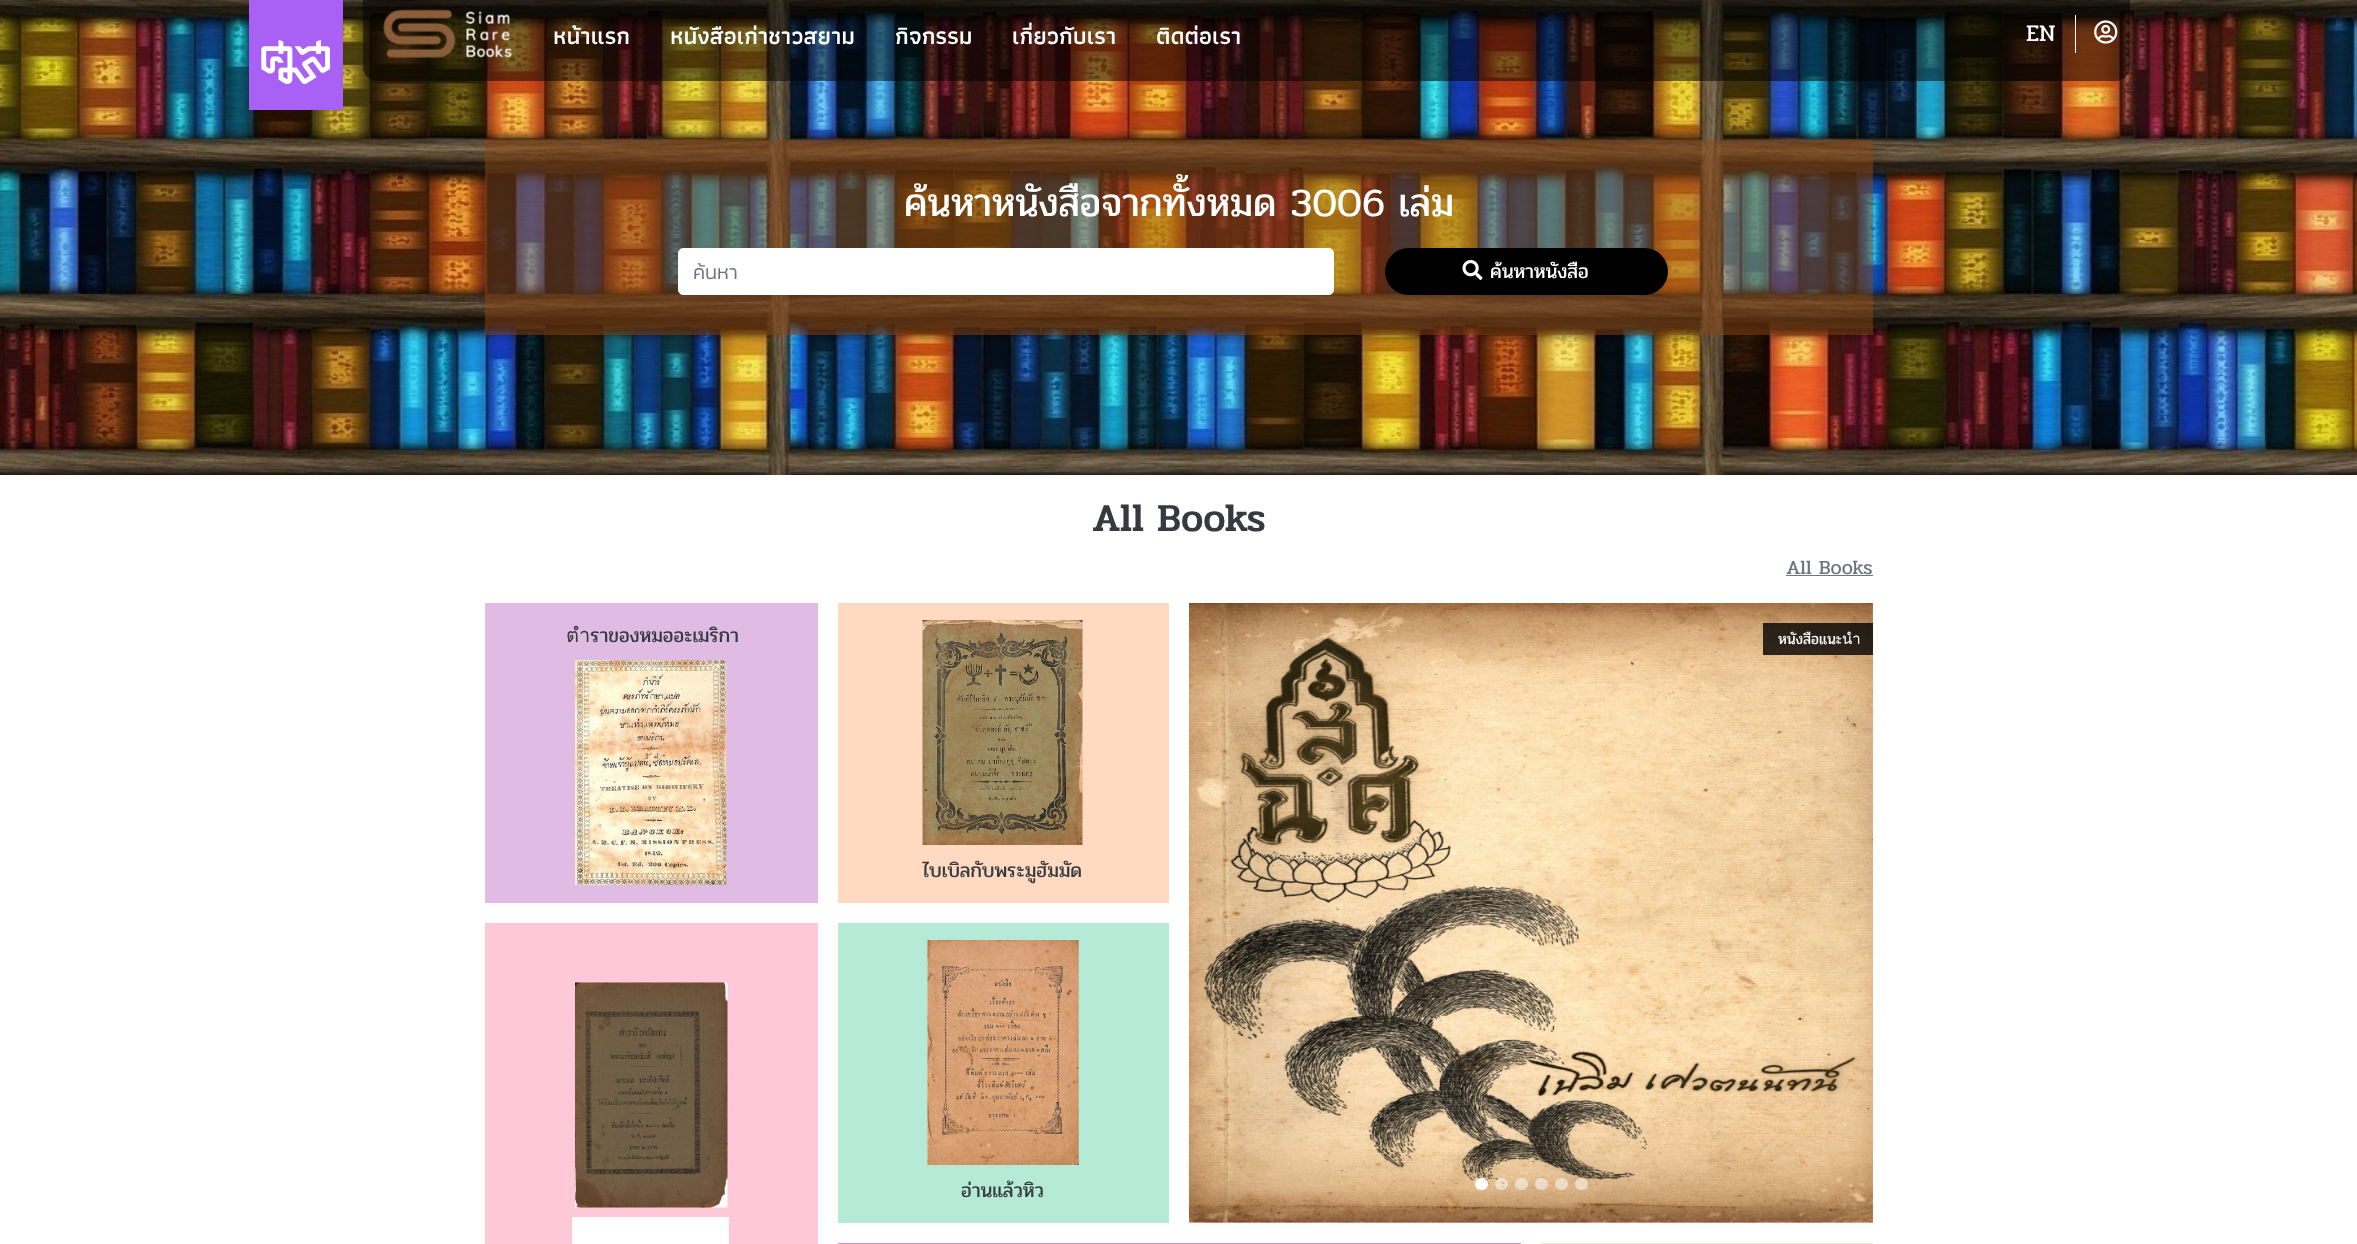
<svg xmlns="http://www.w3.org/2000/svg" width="2357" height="1244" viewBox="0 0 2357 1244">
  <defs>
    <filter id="blur1" x="-50%" y="-200%" width="200%" height="500%"><feGaussianBlur stdDeviation="2.5"/></filter>
    <clipPath id="clip1"><rect x="694" y="256" width="624" height="30"/></clipPath>
  </defs>
  <rect width="100%" height="100%" fill="#ffffff"/>
  <image x="0" y="0" width="2357" height="475" href="img4.png"/>
  <rect x="249" y="3" width="94" height="110" fill="#000000" fill-opacity="0.07" filter="url(#blur1)"/>
  <rect x="249" y="0" width="94" height="110" fill="#a961f5"/>
  <image x="261" y="40" width="69" height="44" href="img1.png"/>
  <path d="M363 0H2130V67C2130 74.5 2123.5 81 2116 81H377C369.5 81 363 74.5 363 67Z" fill="#000000" fill-opacity="0.5"/>
  <image x="383" y="9" width="130" height="50" href="img2.png"/>
  <text x="553" y="44" font-family="Athiti" font-size="24" font-weight="600" fill="#ffffff">หน้าแรก</text>
  <text x="670" y="44" font-family="Athiti" font-size="24" font-weight="600" fill="#ffffff">หนังสือเก่าชาวสยาม</text>
  <text x="895" y="44" font-family="Athiti" font-size="24" font-weight="600" fill="#ffffff">กิจกรรม</text>
  <text x="1012" y="44" font-family="Athiti" font-size="24" font-weight="600" fill="#ffffff">เกี่ยวกับเรา</text>
  <text x="1156" y="44" font-family="Athiti" font-size="24" font-weight="600" fill="#ffffff">ติดต่อเรา</text>
  <text x="2026" y="41" font-family="Pridi" font-size="24" fill="#ffffff">EN</text>
  <rect x="2075" y="15" width="1" height="38" fill="#ffffff"/>
  <image x="2094" y="20" width="24" height="24" href="img3.png"/>
  <rect x="485" y="140" width="1388" height="195" fill="#8b4513" fill-opacity="0.5"/>
  <text x="904" y="216" font-family="Pridi" font-size="40" fill="#ffffff">ค้นหาหนังสือจากทั้งหมด 3006 เล่ม</text>
  <rect x="678.5" y="248.5" width="655" height="46" rx="4.5" fill="#ffffff" stroke="#ffffff"/>
  <g clip-path="url(#clip1)">
    <text x="693" y="279" font-family="Kanit" font-size="20" font-weight="300" fill="#6c757d">ค้นหา</text>
  </g>
  <rect x="1385" y="248" width="283" height="47" rx="23.5" fill="#000000"/>
  <image x="1462" y="260" width="21" height="20" href="img5.png"/>
  <text x="1490" y="278" font-family="Pridi" font-size="20" fill="#ffffff">ค้นหาหนังสือ</text>
  <text x="1092" y="531" font-family="Pridi" font-size="40" font-weight="500" fill="#343a40">All Books</text>
  <text x="1786" y="574" font-family="Pridi" font-size="20" fill="#6c757d">All Books</text>
  <rect x="1786" y="575" width="87" height="1" fill="#6c757d"/>
  <rect x="485" y="603" width="333" height="300" fill="#e0bbe4"/>
  <text x="566" y="642" font-family="Pridi" font-size="20" fill="#343a40">ตำราของหมออะเมริกา</text>
  <image x="575" y="660" width="152" height="225" href="img6.png"/>
  <rect x="1189" y="603" width="684" height="620" fill="#ffb7b2"/>
  <image x="1189" y="603" width="684" height="620" href="img7.png"/>
  <rect x="1475" y="1178" width="13" height="12" rx="6" fill="#ffffff"/>
  <rect x="1495" y="1178" width="13" height="12" rx="6" fill="#ffffff" fill-opacity="0.5"/>
  <rect x="1515" y="1178" width="13" height="12" rx="6" fill="#ffffff" fill-opacity="0.5"/>
  <rect x="1535" y="1178" width="13" height="12" rx="6" fill="#ffffff" fill-opacity="0.5"/>
  <rect x="1555" y="1178" width="13" height="12" rx="6" fill="#ffffff" fill-opacity="0.5"/>
  <rect x="1575" y="1178" width="13" height="12" rx="6" fill="#ffffff" fill-opacity="0.5"/>
  <rect x="1763" y="623" width="110" height="32" fill="#000000" fill-opacity="0.8"/>
  <text x="1778" y="644" font-family="Pridi" font-size="15" fill="#ffffff">หนังสือแนะนำ</text>
  <rect x="838" y="603" width="331" height="300" fill="#ffdac1"/>
  <image x="922" y="620" width="161" height="225" href="img8.png"/>
  <text x="923" y="877" font-family="Pridi" font-size="20" fill="#343a40">ไบเบิลกับพระมูฮัมมัด</text>
  <rect x="485" y="923" width="333" height="321" fill="#fec8d8"/>
  <image x="575" y="982" width="153" height="226" href="img9.png"/>
  <rect x="572" y="1217" width="157" height="27" fill="#ffffff"/>
  <rect x="838" y="923" width="331" height="300" fill="#b5ead7"/>
  <image x="927" y="940" width="152" height="225" href="img10.png"/>
  <text x="961" y="1197" font-family="Pridi" font-size="20" fill="#343a40">อ่านแล้วหิว</text>
  <rect x="838" y="1243" width="683" height="1" fill="#d291bc"/>
  <rect x="1541" y="1243" width="332" height="1" fill="#e2f0cb"/>
</svg>
